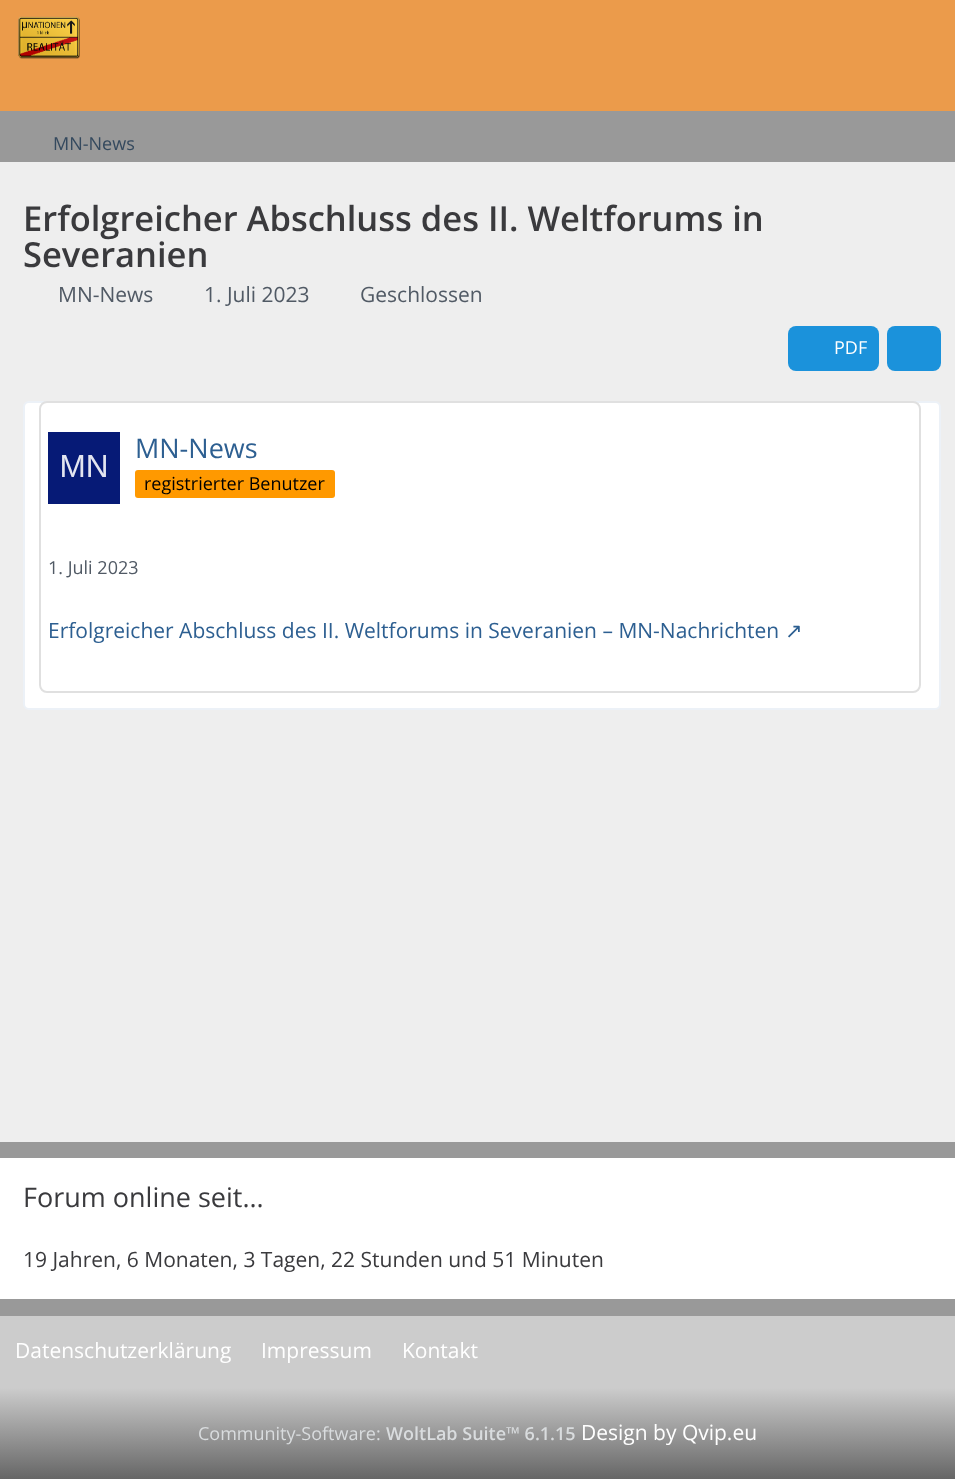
<svg xmlns="http://www.w3.org/2000/svg" width="955" height="1479" viewBox="0 0 955 1479">
  <defs>
    <linearGradient id="g1" gradientUnits="userSpaceOnUse" x1="478" y1="1388" x2="478" y2="1479"><stop offset="0" stop-color="#cccccc"/><stop offset="1" stop-color="#666666"/></linearGradient>
  </defs>
  <rect width="100%" height="100%" fill="#eb9b4b"/>
  <image x="18" y="16" width="62" height="43" href="img1.png"/>
  <rect x="0" y="111" width="955" height="51" fill="#999999"/>
  <text x="53" y="150" font-family="Open Sans" font-size="18" fill="#34495e">MN-News</text>
  <rect x="0" y="162" width="955" height="980" fill="#eeeeee"/>
  <text x="23" y="231" font-family="Open Sans" font-size="34.5" font-weight="600" fill="#3a3a3d">Erfolgreicher Abschluss des II. Weltforums in</text>
  <text x="23" y="267" font-family="Open Sans" font-size="34.5" font-weight="600" fill="#3a3a3d">Severanien</text>
  <text x="58" y="302" font-family="Open Sans" font-size="21" fill="#515a65">MN-News</text>
  <text x="204" y="302" font-family="Open Sans" font-size="21" fill="#515a65">1. Juli 2023</text>
  <text x="360" y="302" font-family="Open Sans" font-size="21" fill="#515a65">Geschlossen</text>
  <rect x="788" y="326" width="91" height="45" rx="8" fill="#1b92db"/>
  <text x="834" y="354" font-family="Open Sans" font-size="18" fill="#ffffff">PDF</text>
  <rect x="887" y="326" width="54" height="45" rx="8" fill="#1b92db"/>
  <rect x="24" y="402" width="916" height="307" rx="5" fill="#ffffff" stroke="#ecf1f7" stroke-width="2"/>
  <rect x="40" y="402" width="880" height="290" rx="7" fill="#ffffff" stroke="#e0e0e0" stroke-width="2"/>
  <image x="48" y="432" width="72" height="72" href="img2.png"/>
  <text x="135" y="458" font-family="Open Sans" font-size="27" fill="#2d5f91">MN-News</text>
  <rect x="135" y="470" width="200" height="28" rx="3" fill="#ff9900"/>
  <text x="144" y="490" font-family="Open Sans" font-size="18" fill="#000000">registrierter Benutzer</text>
  <text x="48" y="574" font-family="Open Sans" font-size="18" fill="#515a65">1. Juli 2023</text>
  <text x="48" y="638" font-family="Open Sans" font-size="21" fill="#2d5f91">Erfolgreicher Abschluss des II. Weltforums in Severanien – MN-Nachrichten</text>
  <text x="785" y="638" font-family="DejaVu Sans" font-size="21" fill="#2d5f91">↗</text>
  <rect x="0" y="1142" width="955" height="174" fill="#999999"/>
  <rect x="0" y="1158" width="955" height="141" fill="#ffffff"/>
  <text x="23" y="1207" font-family="Open Sans" font-size="27" fill="#3a3a3d">Forum online seit...</text>
  <text x="23" y="1267" font-family="Open Sans" font-size="21" fill="#3a3a3d">19 Jahren, 6 Monaten, 3 Tagen, 22 Stunden und 51 Minuten</text>
  <rect x="0" y="1316" width="955" height="72" fill="#cccccc"/>
  <text x="15" y="1358" font-family="Open Sans" font-size="21" fill="#ffffff">Datenschutzerklärung</text>
  <text x="261" y="1358" font-family="Open Sans" font-size="21" fill="#ffffff">Impressum</text>
  <text x="402" y="1358" font-family="Open Sans" font-size="21" fill="#ffffff">Kontakt</text>
  <rect x="0" y="1388" width="955" height="91" fill="url(#g1)"/>
  <text x="198" y="1440" font-family="Open Sans" font-size="18" fill="#d9dcde">Community-Software:</text>
  <text x="386" y="1440" font-family="Open Sans" font-size="18" font-weight="600" fill="#d9dcde">WoltLab Suite™ 6.1.15</text>
  <text x="581" y="1440" font-family="Open Sans" font-size="21" fill="#ffffff">Design by Qvip.eu</text>
</svg>
